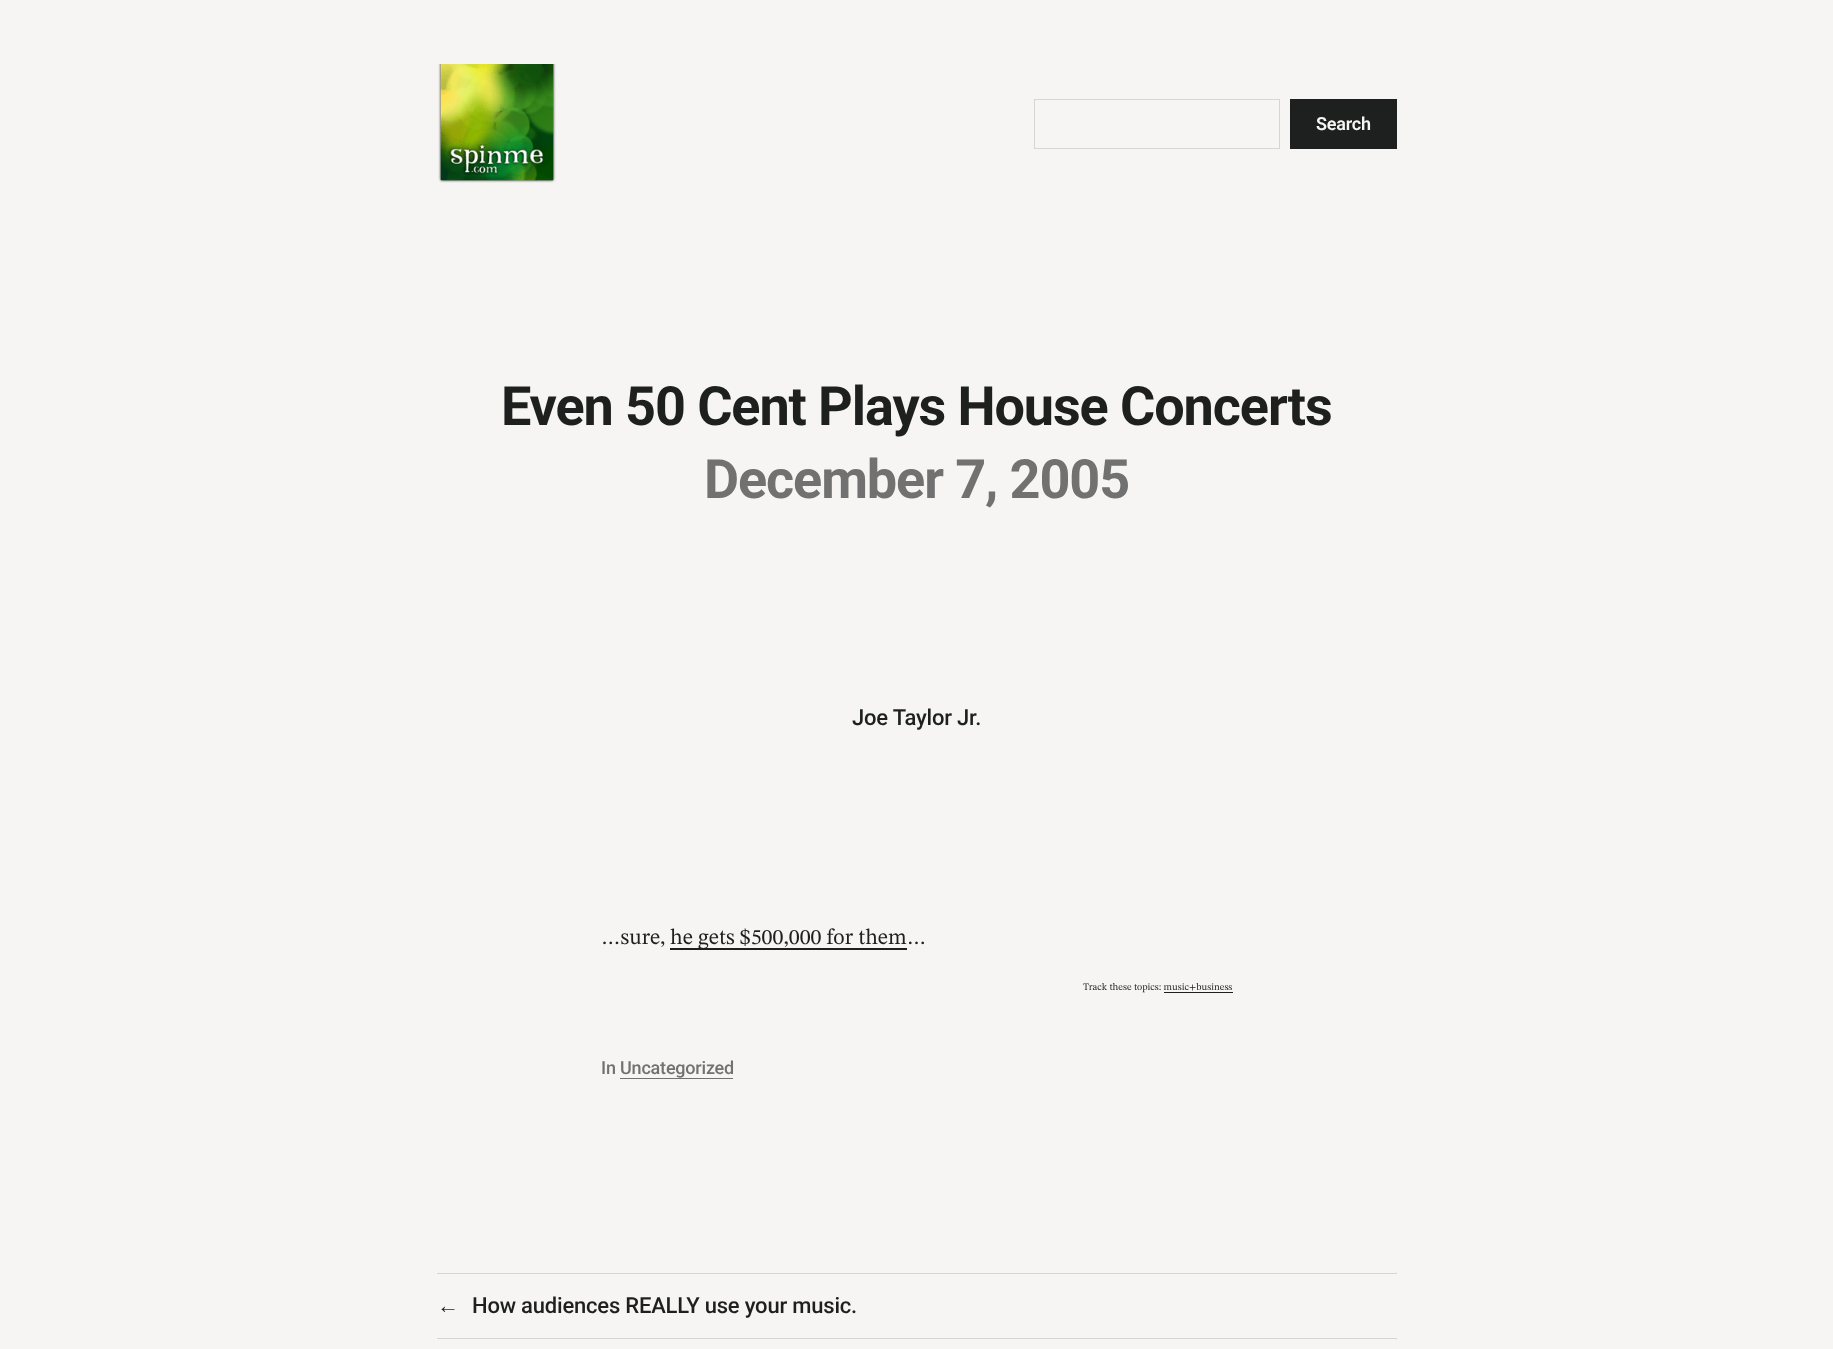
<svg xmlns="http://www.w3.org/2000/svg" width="1833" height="1349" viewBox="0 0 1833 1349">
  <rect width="100%" height="100%" fill="#f7f5f3"/>
  <image x="438" y="64" width="118" height="119" href="img1.png"/>
  <rect x="1034.5" y="99.5" width="245" height="49" fill="none" stroke="#d6d5d3"/>
  <rect x="1290" y="99" width="107" height="50" fill="#1d201f"/>
  <text x="1316" y="130" font-family="Roboto" font-size="18" font-weight="600" letter-spacing="-0.2" fill="#f7f5f3">Search</text>
  <text x="501" y="425" font-family="Roboto" font-size="54" font-weight="bold" letter-spacing="-1.1" fill="#1d201f">Even 50 Cent Plays House Concerts</text>
  <text x="704" y="498" font-family="Roboto" font-size="54" font-weight="bold" letter-spacing="-1.1" fill="#707170">December 7, 2005</text>
  <text x="852" y="725" font-family="Roboto" font-size="22" font-weight="500" letter-spacing="-0.2" fill="#1d201f">Joe Taylor Jr.</text>
  <text x="601" y="944" font-family="STIX Two Text" font-size="22" fill="#1d201f">…sure,</text>
  <rect x="670" y="948" width="237" height="2" fill="#1d201f"/>
  <text x="670" y="944" font-family="STIX Two Text" font-size="22" fill="#1d201f">he gets $500,000 for them…</text>
  <text x="1083" y="990" font-family="STIX Two Text" font-size="10" fill="#1d201f">Track these topics: music+business</text>
  <rect x="1164" y="992" width="69" height="1" fill="#1d201f"/>
  <text x="601" y="1074" font-family="Roboto" font-size="18" font-weight="500" letter-spacing="-0.2" fill="#707170">In Uncategorized</text>
  <rect x="620" y="1078" width="113" height="1" fill="#707170"/>
  <rect x="437" y="1273" width="960" height="1" fill="#d6d5d3"/>
  <rect x="437" y="1338" width="960" height="1" fill="#d6d5d3"/>
  <text x="437" y="1313" font-family="Liberation Sans" font-size="22" letter-spacing="-0.2" fill="#1d201f">←</text>
  <text x="472" y="1313" font-family="Roboto" font-size="22" font-weight="500" letter-spacing="-0.2" fill="#1d201f">How audiences REALLY use your music.</text>
</svg>
